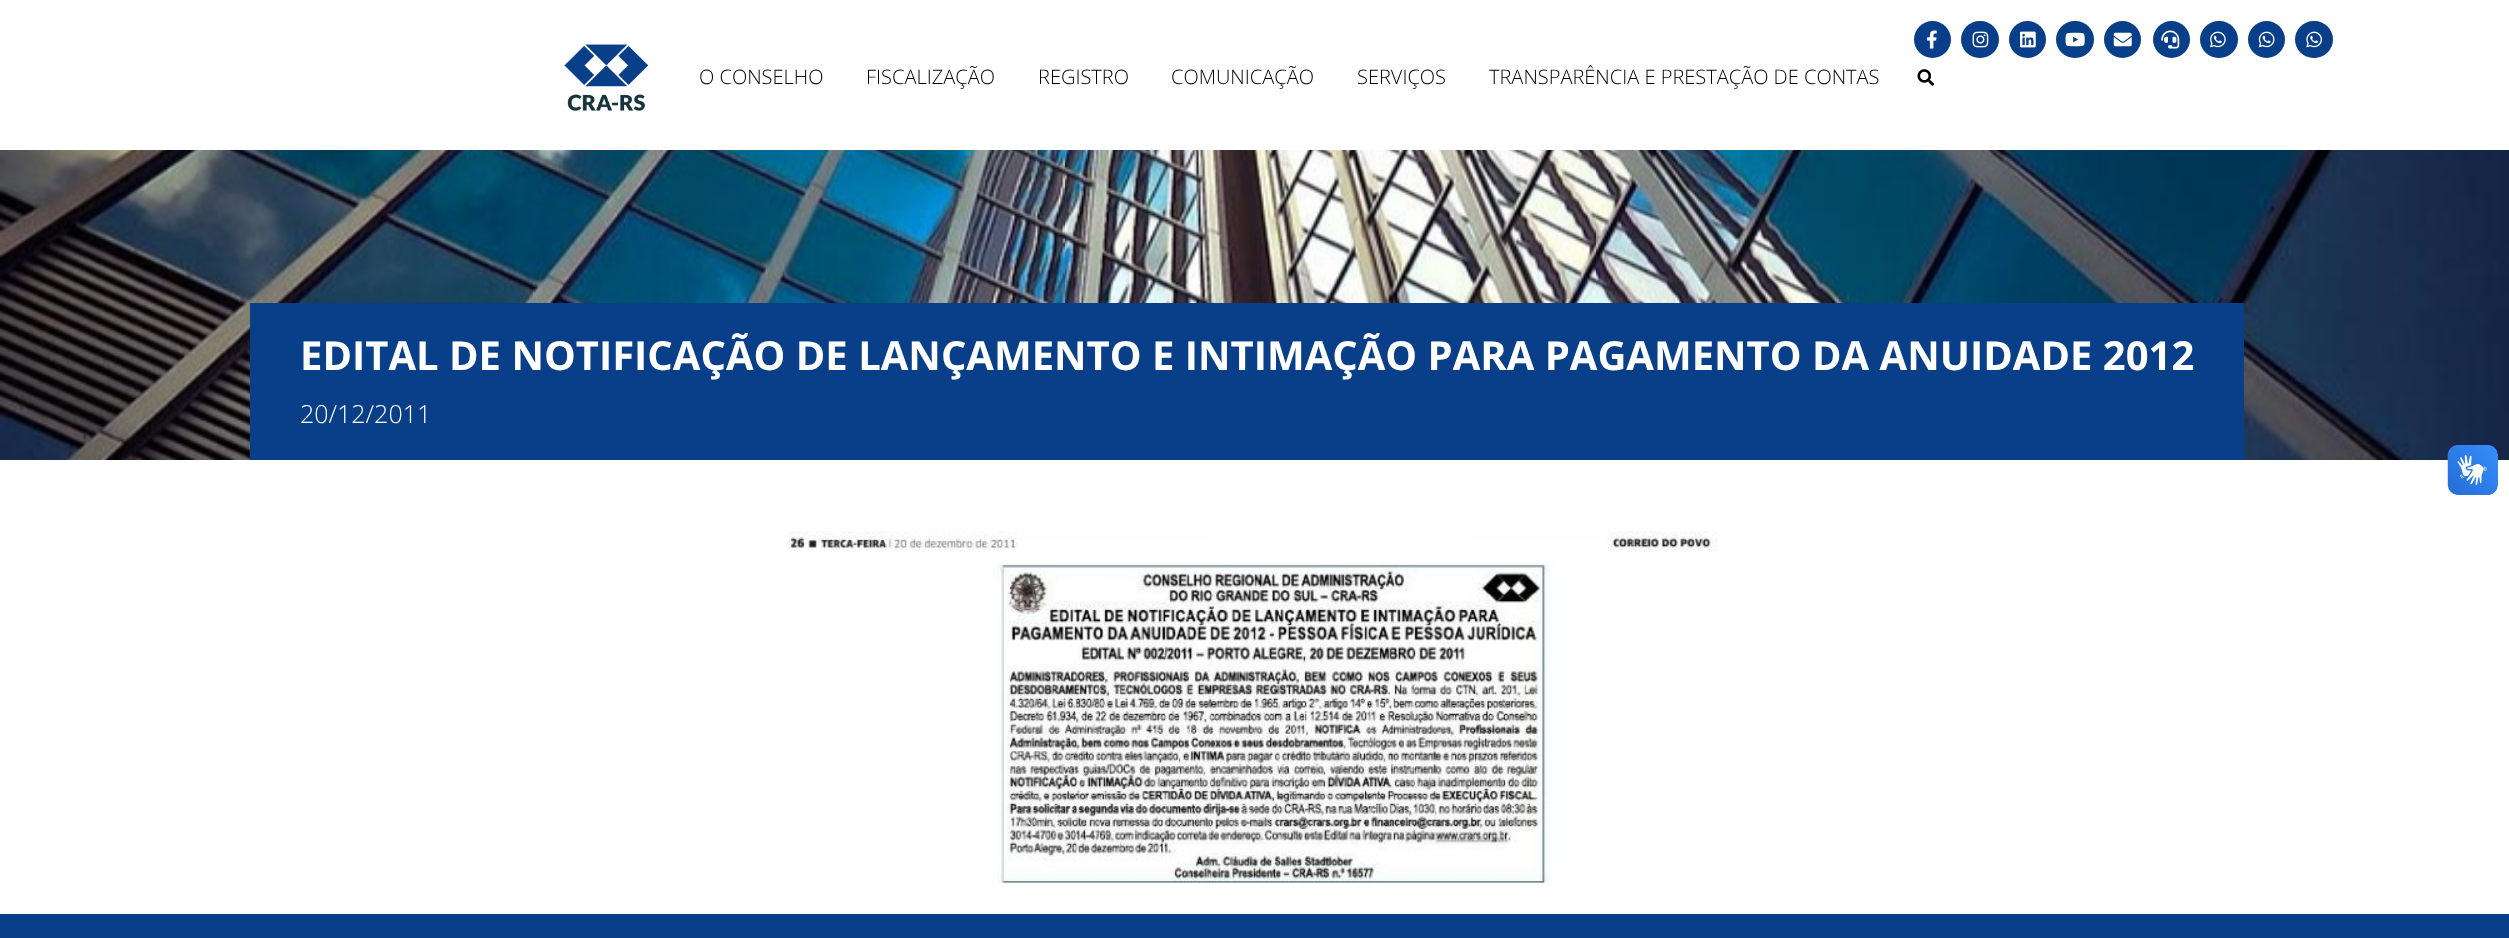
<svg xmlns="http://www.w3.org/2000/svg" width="2509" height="938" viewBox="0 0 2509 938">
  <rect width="100%" height="100%" fill="#ffffff"/>
  <circle cx="1932.5" cy="39.5" r="18.5" fill="#083f88"/>
  <image x="1927" y="30" width="10" height="19" href="img1.png"/>
  <rect x="1961" y="21" width="38" height="37" rx="18.5" fill="#083f88"/>
  <image x="1972" y="31" width="17" height="17" href="img2.png"/>
  <circle cx="2027.5" cy="39.5" r="18.5" fill="#083f88"/>
  <image x="2020" y="31" width="16" height="17" href="img3.png"/>
  <rect x="2056" y="21" width="38" height="37" rx="18.5" fill="#083f88"/>
  <image x="2065" y="32" width="20" height="15" href="img4.png"/>
  <circle cx="2122.5" cy="39.5" r="18.5" fill="#083f88"/>
  <image x="2113" y="32" width="19" height="15" href="img5.png"/>
  <circle cx="2171.5" cy="39.5" r="18.5" fill="#083f88"/>
  <image x="2161" y="30" width="19" height="19" href="img6.png"/>
  <rect x="2200" y="21" width="38" height="37" rx="18.5" fill="#083f88"/>
  <image x="2210" y="31" width="16" height="17" href="img7.png"/>
  <circle cx="2266.5" cy="39.5" r="18.5" fill="#083f88"/>
  <image x="2258" y="31" width="17" height="17" href="img8.png"/>
  <rect x="2295" y="21" width="38" height="37" rx="18.5" fill="#083f88"/>
  <image x="2306" y="31" width="16" height="17" href="img9.png"/>
  <image x="564" y="44" width="85" height="67" href="img10.png"/>
  <text x="699" y="84" font-family="Open Sans" font-size="20" font-weight="300" fill="#000000">O CONSELHO</text>
  <text x="866" y="84" font-family="Open Sans" font-size="20" font-weight="300" fill="#000000">FISCALIZAÇÃO</text>
  <text x="1038" y="84" font-family="Open Sans" font-size="20" font-weight="300" fill="#000000">REGISTRO</text>
  <text x="1171" y="84" font-family="Open Sans" font-size="20" font-weight="300" fill="#000000">COMUNICAÇÃO</text>
  <text x="1357" y="84" font-family="Open Sans" font-size="20" font-weight="300" fill="#000000">SERVIÇOS</text>
  <text x="1489" y="84" font-family="Open Sans" font-size="20" font-weight="300" fill="#000000">TRANSPARÊNCIA E PRESTAÇÃO DE CONTAS</text>
  <image x="1917" y="69" width="18" height="17" href="img11.png"/>
  <image x="0" y="150" width="2509" height="310" href="img12.png"/>
  <rect x="250" y="303" width="1994" height="157" fill="#083f88"/>
  <text x="300" y="370" font-family="Open Sans" font-size="40" font-weight="bold" fill="#ffffff">EDITAL DE NOTIFICAÇÃO DE LANÇAMENTO E INTIMAÇÃO PARA PAGAMENTO DA ANUIDADE 2012</text>
  <text x="300" y="423" font-family="Open Sans" font-size="25" font-weight="300" fill="#ffffff">20/12/2011</text>
  <image x="787" y="531" width="931" height="352" href="img13.png"/>
  <rect x="0" y="914" width="2509" height="24" fill="#083f88"/>
  <image x="2447" y="445" width="51" height="50" href="img14.png"/>
  <image x="2448" y="445" width="50" height="50" href="img15.png"/>
</svg>
